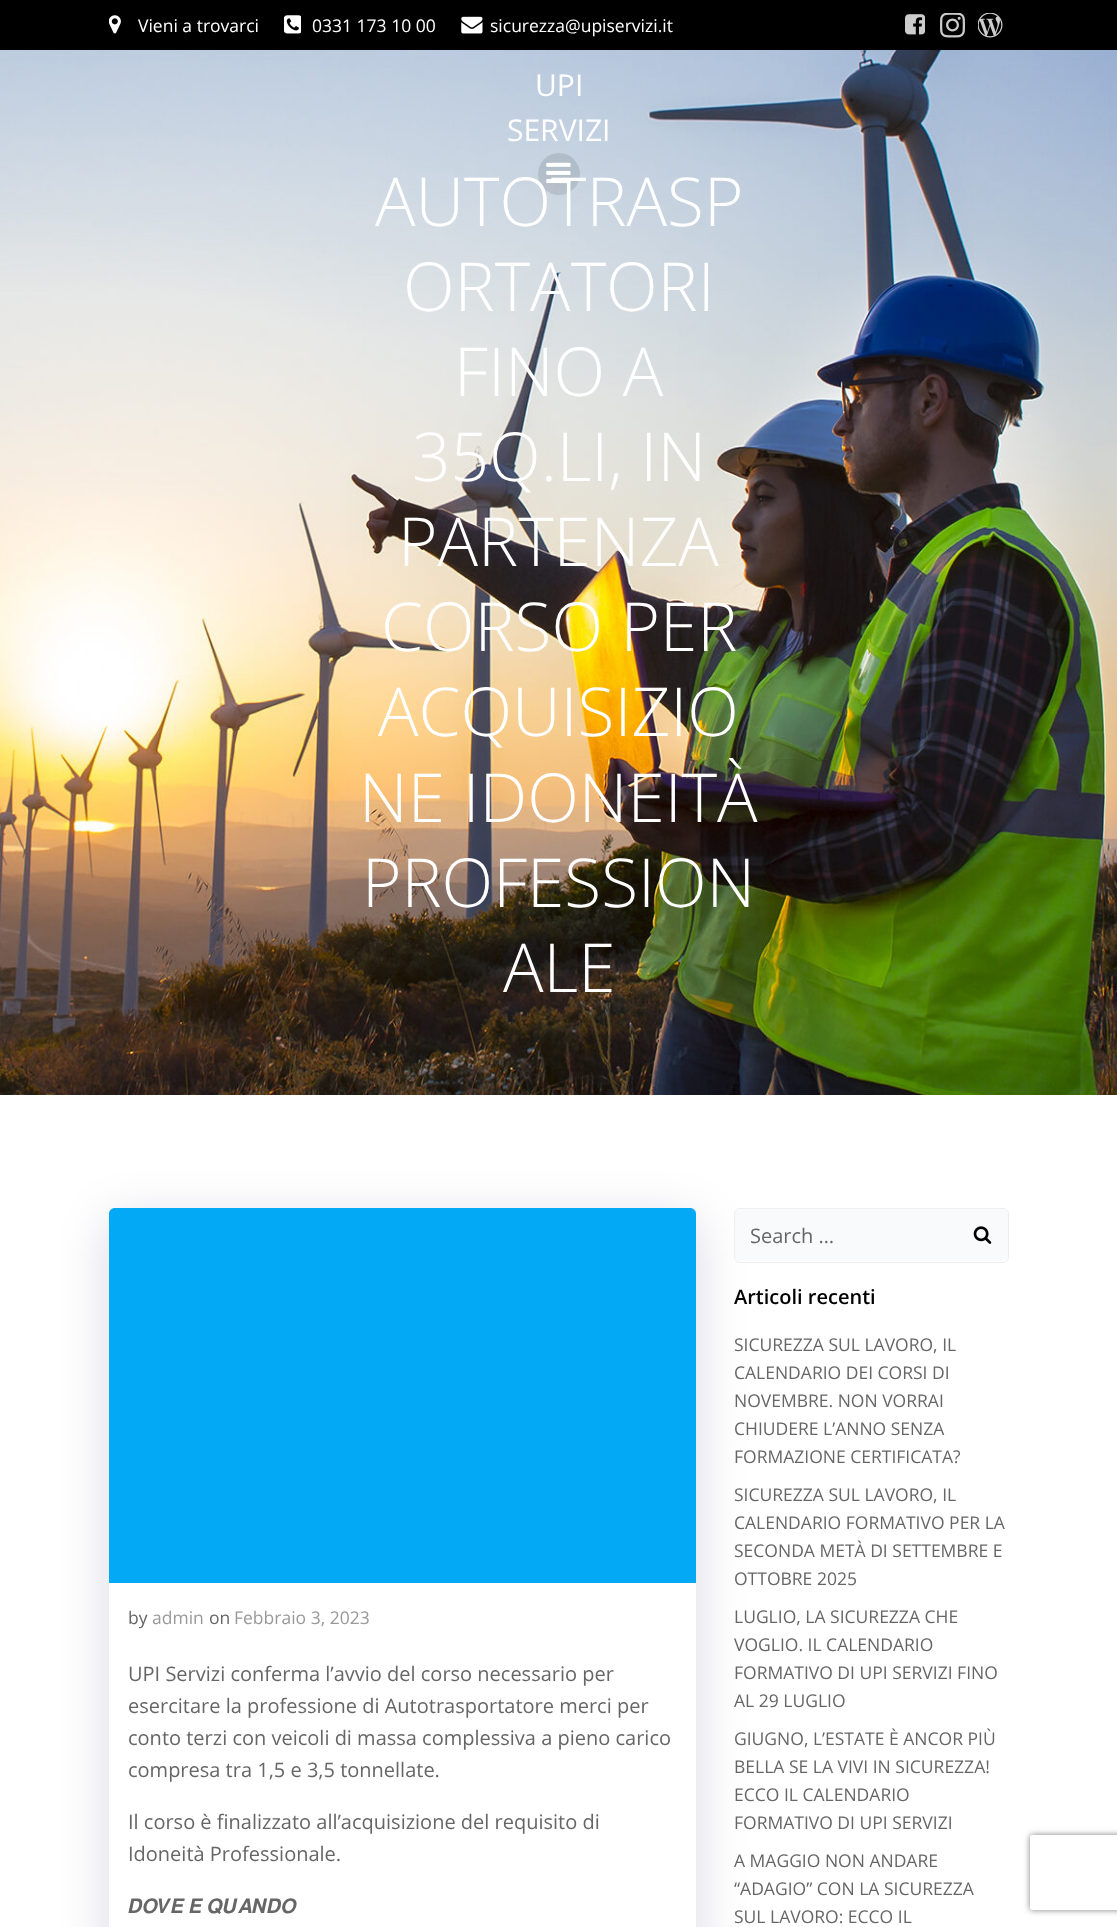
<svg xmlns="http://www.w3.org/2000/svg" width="1117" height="1927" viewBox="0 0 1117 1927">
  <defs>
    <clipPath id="clip1"><path d="M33 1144H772V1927H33ZM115 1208H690C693.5 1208 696 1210.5 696 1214V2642C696 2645.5 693.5 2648 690 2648H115C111.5 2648 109 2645.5 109 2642V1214C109 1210.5 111.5 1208 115 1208Z" clip-rule="evenodd"/></clipPath>
    <filter id="blur1" x="-50%" y="-200%" width="200%" height="500%"><feGaussianBlur stdDeviation="25"/></filter>
    <clipPath id="clip2"><rect x="735" y="1209" width="273" height="52" rx="5"/></clipPath>
    <clipPath id="clip3"><path d="M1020 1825H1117V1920H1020ZM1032.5 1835H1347.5C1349 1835 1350 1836 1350 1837.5V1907.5C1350 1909 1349 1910 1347.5 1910H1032.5C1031 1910 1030 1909 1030 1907.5V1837.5C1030 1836 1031 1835 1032.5 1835Z" clip-rule="evenodd"/></clipPath>
    <filter id="blur2" x="-50%" y="-200%" width="200%" height="500%"><feGaussianBlur stdDeviation="3"/></filter>
  </defs>
  <rect width="100%" height="100%" fill="#ffffff"/>
  <rect x="0" y="0" width="1117" height="50" fill="#000000"/>
  <image x="109" y="15" width="12" height="19" href="img1.png"/>
  <text x="138" y="32" font-family="Open Sans" font-size="17.5" fill="#ffffff">Vieni a trovarci</text>
  <image x="284" y="15" width="17" height="19" href="img2.png"/>
  <text x="312" y="32" font-family="Open Sans" font-size="17.5" fill="#ffffff">0331 173 10 00</text>
  <image x="461" y="16" width="22" height="18" href="img3.png"/>
  <text x="490" y="32" font-family="Open Sans" font-size="17.5" fill="#ffffff">sicurezza@upiservizi.it</text>
  <image x="905" y="14" width="20" height="21" href="img4.png"/>
  <image x="940" y="13" width="25" height="25" href="img5.png"/>
  <image x="978" y="13" width="25" height="25" href="img6.png"/>
  <image x="0" y="50" width="1117" height="1045" href="img8.png"/>
  <text x="535" y="96" font-family="Open Sans" font-size="30" fill="#ffffff">UPI</text>
  <text x="507" y="141" font-family="Open Sans" font-size="30" fill="#ffffff">SERVIZI</text>
  <circle cx="559" cy="174" r="21" fill="#000000" fill-opacity="0.1"/>
  <text x="375" y="226" font-family="Open Sans" font-size="67.5" font-weight="300" fill="#ffffff">AUTOTRASP</text>
  <image x="546" y="162" width="25" height="22" href="img7.png"/>
  <text x="403" y="311" font-family="Open Sans" font-size="67.5" font-weight="300" fill="#ffffff">ORTATORI</text>
  <text x="454" y="396" font-family="Open Sans" font-size="67.5" font-weight="300" fill="#ffffff">FINO A</text>
  <text x="412" y="481" font-family="Open Sans" font-size="67.5" font-weight="300" fill="#ffffff">35Q.LI, IN</text>
  <text x="398" y="566" font-family="Open Sans" font-size="67.5" font-weight="300" fill="#ffffff">PARTENZA</text>
  <text x="381" y="651" font-family="Open Sans" font-size="67.5" font-weight="300" fill="#ffffff">CORSO PER</text>
  <text x="378" y="736" font-family="Open Sans" font-size="67.5" font-weight="300" fill="#ffffff">ACQUISIZIO</text>
  <text x="359" y="822" font-family="Open Sans" font-size="67.5" font-weight="300" fill="#ffffff">NE IDONEITÀ</text>
  <text x="362" y="907" font-family="Open Sans" font-size="67.5" font-weight="300" fill="#ffffff">PROFESSION</text>
  <text x="503" y="992" font-family="Open Sans" font-size="67.5" font-weight="300" fill="#ffffff">ALE</text>
  <g clip-path="url(#clip1)">
    <rect x="109" y="1220" width="587" height="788" rx="6" fill="#01334a" fill-opacity="0.15" filter="url(#blur1)"/>
  </g>
  <path d="M115 1208H690C693.5 1208 696 1210.5 696 1214V1583H109V1214C109 1210.5 111.5 1208 115 1208Z" fill="#03a9f4"/>
  <text x="128" y="1624" font-family="Open Sans" font-size="17.5" fill="#666666">by</text>
  <text x="152" y="1624" font-family="Open Sans" font-size="17.5" fill="#999999">admin</text>
  <text x="209" y="1624" font-family="Open Sans" font-size="17.5" fill="#666666">on</text>
  <text x="234" y="1624" font-family="Open Sans" font-size="17.5" fill="#999999">Febbraio 3, 2023</text>
  <text x="128" y="1681" font-family="Open Sans" font-size="20" fill="#666666">UPI Servizi conferma l’avvio del corso necessario per</text>
  <text x="128" y="1713" font-family="Open Sans" font-size="20" fill="#666666">esercitare la professione di Autotrasportatore merci per</text>
  <text x="128" y="1745" font-family="Open Sans" font-size="20" fill="#666666">conto terzi con veicoli di massa complessiva a pieno carico</text>
  <text x="128" y="1777" font-family="Open Sans" font-size="20" fill="#666666">compresa tra 1,5 e 3,5 tonnellate.</text>
  <text x="128" y="1829" font-family="Open Sans" font-size="20" fill="#666666">Il corso è finalizzato all’acquisizione del requisito di</text>
  <text x="128" y="1861" font-family="Open Sans" font-size="20" fill="#666666">Idoneità Professionale.</text>
  <text x="128" y="1913" font-family="FreeSans" font-size="20" fill="#666666">𝑫𝑶𝑽𝑬 𝑬 𝑸𝑼𝑨𝑵𝑫𝑶</text>
  <rect x="734.5" y="1208.5" width="274" height="54" rx="5.5" fill="none" stroke="#eeeeee"/>
  <g clip-path="url(#clip2)">
    <path d="M741 1209H958V1261H741C737.5 1261 735 1258.5 735 1255V1215C735 1211.5 737.5 1209 741 1209Z" fill="#f9fafb"/>
  </g>
  <text x="750" y="1243" font-family="Open Sans" font-size="20" fill="#666666">Search …</text>
  <g clip-path="url(#clip2)">
    <path d="M958 1209H1002C1005.5 1209 1008 1211.5 1008 1215V1255C1008 1258.5 1005.5 1261 1002 1261H958Z" fill="#f9fafb"/>
  </g>
  <image x="973" y="1226" width="19" height="18" href="img9.png"/>
  <text x="734" y="1304" font-family="Open Sans" font-size="20" font-weight="600" fill="#000000">Articoli recenti</text>
  <text x="734" y="1351" font-family="Open Sans" font-size="17.5" fill="#666666">SICUREZZA SUL LAVORO, IL</text>
  <text x="734" y="1379" font-family="Open Sans" font-size="17.5" fill="#666666">CALENDARIO DEI CORSI DI</text>
  <text x="734" y="1407" font-family="Open Sans" font-size="17.5" fill="#666666">NOVEMBRE. NON VORRAI</text>
  <text x="734" y="1435" font-family="Open Sans" font-size="17.5" fill="#666666">CHIUDERE L’ANNO SENZA</text>
  <text x="734" y="1463" font-family="Open Sans" font-size="17.5" fill="#666666">FORMAZIONE CERTIFICATA?</text>
  <text x="734" y="1501" font-family="Open Sans" font-size="17.5" fill="#666666">SICUREZZA SUL LAVORO, IL</text>
  <text x="734" y="1529" font-family="Open Sans" font-size="17.5" fill="#666666">CALENDARIO FORMATIVO PER LA</text>
  <text x="734" y="1557" font-family="Open Sans" font-size="17.5" fill="#666666">SECONDA METÀ DI SETTEMBRE E</text>
  <text x="734" y="1585" font-family="Open Sans" font-size="17.5" fill="#666666">OTTOBRE 2025</text>
  <text x="734" y="1623" font-family="Open Sans" font-size="17.5" fill="#666666">LUGLIO, LA SICUREZZA CHE</text>
  <text x="734" y="1651" font-family="Open Sans" font-size="17.5" fill="#666666">VOGLIO. IL CALENDARIO</text>
  <text x="734" y="1679" font-family="Open Sans" font-size="17.5" fill="#666666">FORMATIVO DI UPI SERVIZI FINO</text>
  <text x="734" y="1707" font-family="Open Sans" font-size="17.5" fill="#666666">AL 29 LUGLIO</text>
  <text x="734" y="1745" font-family="Open Sans" font-size="17.5" fill="#666666">GIUGNO, L’ESTATE È ANCOR PIÙ</text>
  <text x="734" y="1773" font-family="Open Sans" font-size="17.5" fill="#666666">BELLA SE LA VIVI IN SICUREZZA!</text>
  <text x="734" y="1801" font-family="Open Sans" font-size="17.5" fill="#666666">ECCO IL CALENDARIO</text>
  <text x="734" y="1829" font-family="Open Sans" font-size="17.5" fill="#666666">FORMATIVO DI UPI SERVIZI</text>
  <text x="734" y="1867" font-family="Open Sans" font-size="17.5" fill="#666666">A MAGGIO NON ANDARE</text>
  <text x="734" y="1895" font-family="Open Sans" font-size="17.5" fill="#666666">“ADAGIO” CON LA SICUREZZA</text>
  <text x="734" y="1923" font-family="Open Sans" font-size="17.5" fill="#666666">SUL LAVORO: ECCO IL</text>
  <g clip-path="url(#clip3)">
    <rect x="1030" y="1835" width="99" height="75" rx="2.5" fill="#808080" filter="url(#blur2)"/>
  </g>
</svg>
